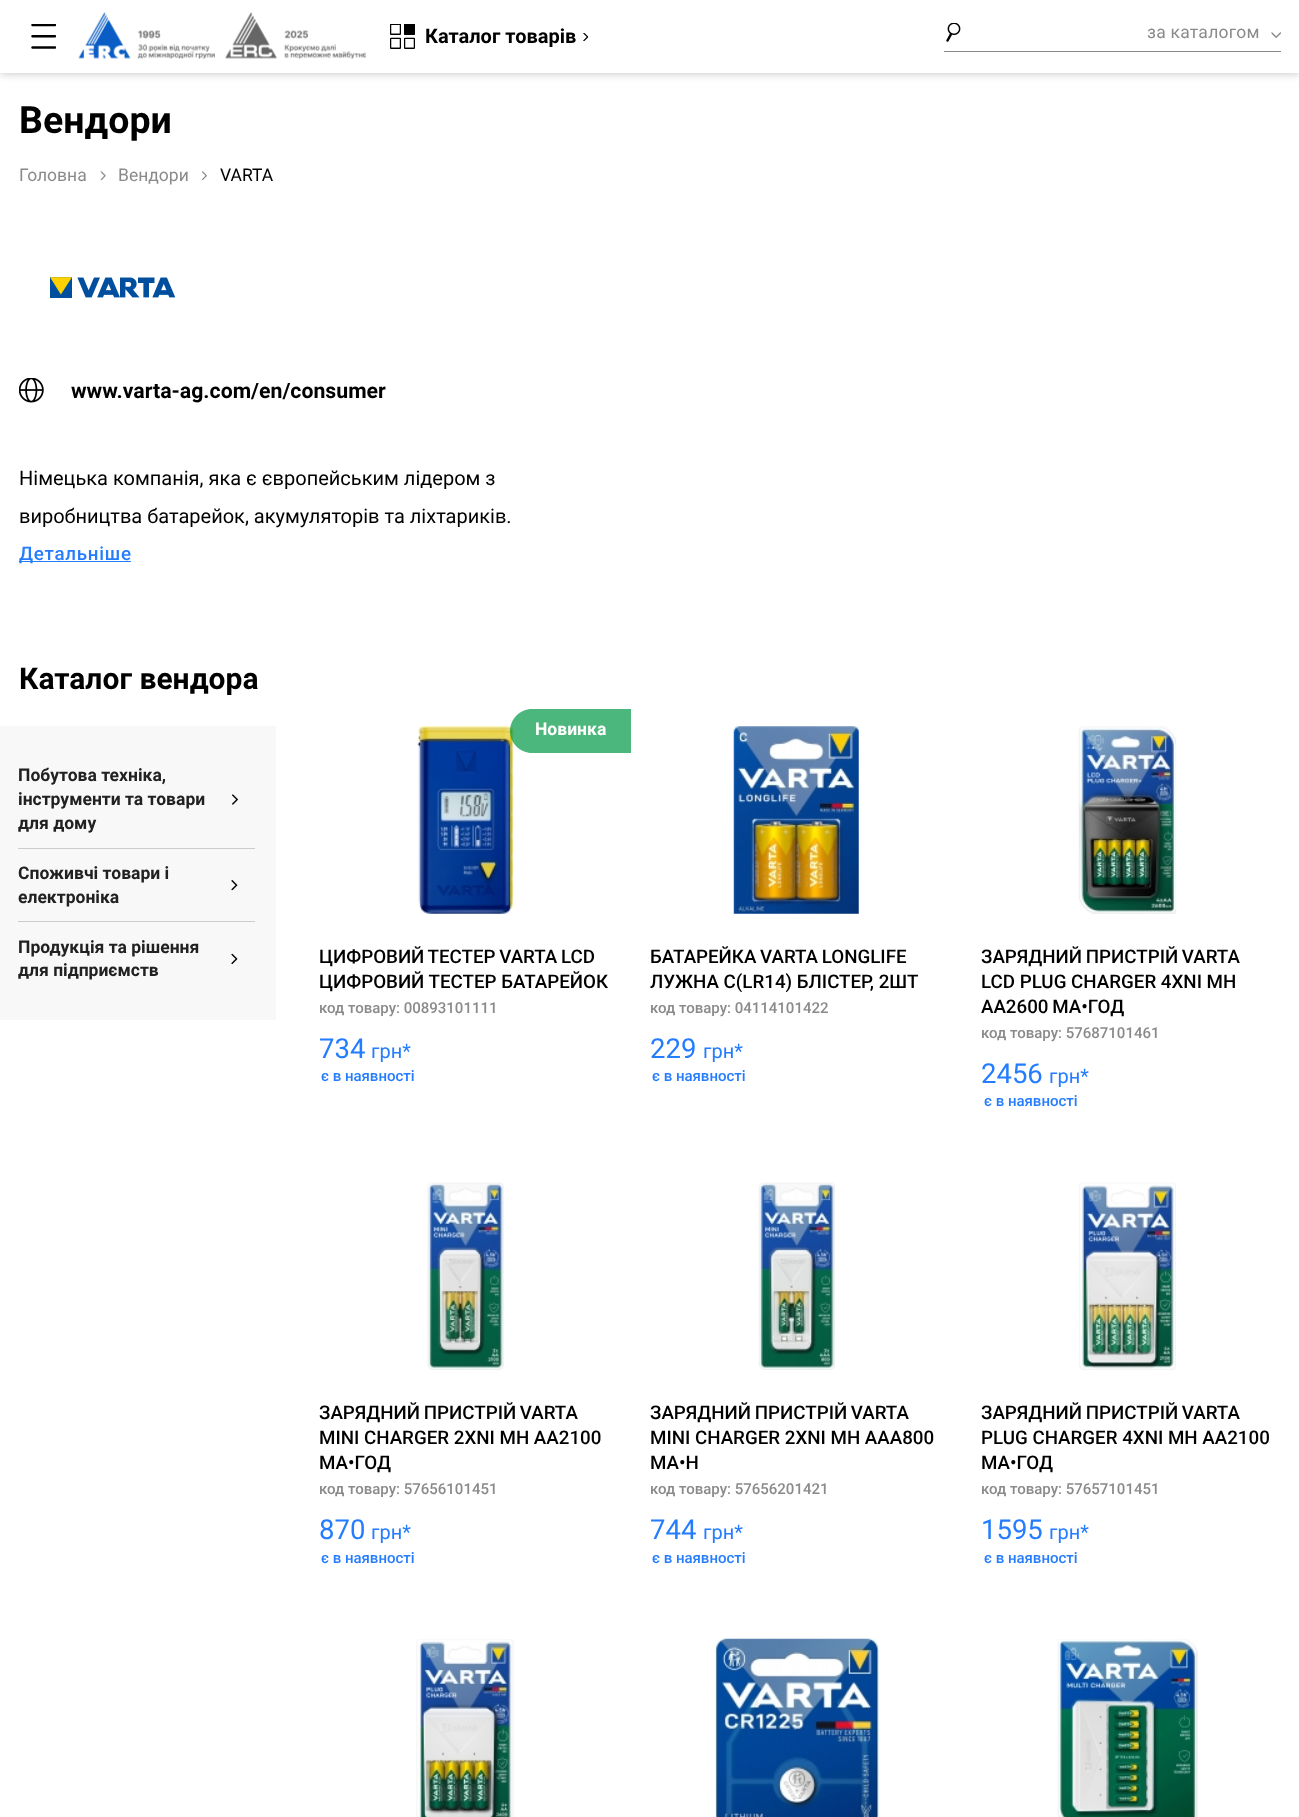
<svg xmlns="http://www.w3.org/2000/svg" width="1299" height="1817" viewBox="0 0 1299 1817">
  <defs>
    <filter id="blur1" x="-50%" y="-200%" width="200%" height="500%"><feGaussianBlur stdDeviation="5"/></filter>
  </defs>
  <rect width="100%" height="100%" fill="#ffffff"/>
  <rect x="0" y="0" width="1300" height="73" fill="#000000" fill-opacity="0.25" filter="url(#blur1)"/>
  <rect x="0" y="0" width="1299" height="73" fill="#ffffff"/>
  <image x="31" y="24" width="25" height="25" href="img1.png"/>
  <image x="78" y="12" width="289" height="47" href="img2.png"/>
  <rect x="390.5" y="24.5" width="10" height="10" rx="0.5" fill="none" stroke="#000000"/>
  <rect x="404" y="24" width="11" height="11" rx="1" fill="#000000"/>
  <rect x="404.5" y="38.5" width="10" height="10" rx="0.5" fill="none" stroke="#000000"/>
  <rect x="390.5" y="38.5" width="10" height="10" rx="0.5" fill="none" stroke="#000000"/>
  <image x="390" y="24" width="25" height="25" href="img3.png"/>
  <text x="425" y="43" font-family="Roboto" font-size="20" font-weight="bold" fill="#000000">Каталог товарів</text>
  <image x="583" y="33" width="6" height="8" href="img4.png"/>
  <rect x="944" y="51" width="337" height="1" fill="#8a8a8a"/>
  <image x="946" y="23" width="15" height="19" href="img5.png"/>
  <text x="1147" y="38" font-family="Roboto" font-size="17.5" letter-spacing="0.25" fill="#8a8a8a">за каталогом</text>
  <image x="1271" y="32" width="10" height="6" href="img6.png"/>
  <text x="19" y="133" font-family="Roboto" font-size="37.5" font-weight="bold" fill="#000000">Вендори</text>
  <text x="19" y="181" font-family="Roboto" font-size="17.5" fill="#8a8a8a">Головна</text>
  <image x="100" y="171" width="6" height="9" href="img7.png"/>
  <text x="118" y="181" font-family="Roboto" font-size="17.5" fill="#8a8a8a">Вендори</text>
  <image x="202" y="171" width="5" height="9" href="img8.png"/>
  <text x="220" y="181" font-family="Roboto" font-size="17.5" fill="#000000">VARTA</text>
  <image x="50" y="277" width="126" height="21" href="img9.png"/>
  <image x="19" y="378" width="25" height="25" href="img10.png"/>
  <text x="71" y="398" font-family="Roboto" font-size="21.25" font-weight="bold" fill="#000000">www.varta-ag.com/en/consumer</text>
  <text x="19" y="485" font-family="Roboto" font-size="20" fill="#000000">Німецька компанія, яка є європейським лідером з</text>
  <text x="19" y="523" font-family="Roboto" font-size="20" fill="#000000">виробництва батарейок, акумуляторів та ліхтариків.</text>
  <rect x="19" y="561" width="112" height="1" fill="#247cff"/>
  <text x="19" y="560" font-family="Roboto" font-size="18.75" font-weight="500" letter-spacing="0.75" fill="#247cff">Детальніше</text>
  <text x="19" y="689" font-family="Roboto" font-size="30" font-weight="bold" fill="#000000">Каталог вендора</text>
  <rect x="0" y="726" width="276" height="294" fill="#f8f8f8"/>
  <rect x="18" y="848" width="237" height="1" fill="#cccccc"/>
  <text x="18" y="781" font-family="Roboto" font-size="17.5" font-weight="bold" fill="#212121">Побутова техніка,</text>
  <text x="18" y="805" font-family="Roboto" font-size="17.5" font-weight="bold" fill="#212121">інструменти та товари</text>
  <image x="232" y="794" width="6" height="11" href="img11.png"/>
  <text x="18" y="829" font-family="Roboto" font-size="17.5" font-weight="bold" fill="#212121">для дому</text>
  <rect x="18" y="921" width="237" height="1" fill="#cccccc"/>
  <text x="18" y="879" font-family="Roboto" font-size="17.5" font-weight="bold" fill="#212121">Споживчі товари і</text>
  <image x="231" y="880" width="7" height="11" href="img12.png"/>
  <text x="18" y="903" font-family="Roboto" font-size="17.5" font-weight="bold" fill="#212121">електроніка</text>
  <text x="18" y="953" font-family="Roboto" font-size="17.5" font-weight="bold" fill="#212121">Продукція та рішення</text>
  <image x="231" y="953" width="7" height="11" href="img13.png"/>
  <text x="18" y="976" font-family="Roboto" font-size="17.5" font-weight="bold" fill="#212121">для підприємств</text>
  <image x="417" y="726" width="97" height="188" href="img14.png"/>
  <path d="M532 709H631V753H532C520 753 510 743 510 731C510 719 520 709 532 709Z" fill="#009946" fill-opacity="0.7"/>
  <text x="535" y="735" font-family="Roboto" font-size="17.5" font-weight="bold" fill="#ffffff">Новинка</text>
  <text x="319" y="963" word-spacing="-1" font-family="Roboto" font-size="18.75" font-weight="500" fill="#000000">ЦИФРОВИЙ ТЕСТЕР VARTA LCD</text>
  <text x="319" y="988" font-family="Roboto" font-size="18.75" font-weight="500" fill="#000000">ЦИФРОВИЙ ТЕСТЕР БАТАРЕЙОК</text>
  <text x="319" y="1013" font-family="Roboto" font-size="15" font-weight="500" fill="#8a8a8a">код товару: 00893101111</text>
  <text x="319" y="1058" font-family="Roboto" font-size="27.5" fill="#247cff">734</text>
  <text x="371" y="1058" font-family="Roboto" font-size="20" fill="#247cff">грн*</text>
  <text x="321" y="1081" font-family="Roboto" font-size="15" font-weight="500" fill="#247cff">є в наявності</text>
  <image x="733" y="726" width="126" height="188" href="img15.png"/>
  <text x="650" y="963" word-spacing="-1" font-family="Roboto" font-size="18.75" font-weight="500" fill="#000000">БАТАРЕЙКА VARTA LONGLIFE</text>
  <text x="650" y="988" font-family="Roboto" font-size="18.75" font-weight="500" fill="#000000">ЛУЖНА C(LR14) БЛІСТЕР, 2ШТ</text>
  <text x="650" y="1013" font-family="Roboto" font-size="15" font-weight="500" fill="#8a8a8a">код товару: 04114101422</text>
  <text x="650" y="1058" font-family="Roboto" font-size="27.5" fill="#247cff">229</text>
  <text x="703" y="1058" font-family="Roboto" font-size="20" fill="#247cff">грн*</text>
  <text x="652" y="1081" font-family="Roboto" font-size="15" font-weight="500" fill="#247cff">є в наявності</text>
  <image x="1078" y="726" width="99" height="188" href="img16.png"/>
  <text x="981" y="963" word-spacing="-1" font-family="Roboto" font-size="18.75" font-weight="500" fill="#000000">ЗАРЯДНИЙ ПРИСТРІЙ VARTA</text>
  <text x="981" y="988" font-family="Roboto" font-size="18.75" font-weight="500" fill="#000000">LCD PLUG CHARGER 4ХNI MH</text>
  <text x="981" y="1013" word-spacing="-1" font-family="Roboto" font-size="18.75" font-weight="500" fill="#000000">AA2600 МА•ГОД</text>
  <text x="981" y="1038" font-family="Roboto" font-size="15" font-weight="500" fill="#8a8a8a">код товару: 57687101461</text>
  <text x="981" y="1083" font-family="Roboto" font-size="27.5" fill="#247cff">2456</text>
  <text x="1049" y="1083" font-family="Roboto" font-size="20" fill="#247cff">грн*</text>
  <text x="984" y="1106" font-family="Roboto" font-size="15" font-weight="500" fill="#247cff">є в наявності</text>
  <image x="427" y="1182" width="77" height="188" href="img17.png"/>
  <text x="319" y="1419" word-spacing="-1" font-family="Roboto" font-size="18.75" font-weight="500" fill="#000000">ЗАРЯДНИЙ ПРИСТРІЙ VARTA</text>
  <text x="319" y="1444" font-family="Roboto" font-size="18.75" font-weight="500" fill="#000000">MINI CHARGER 2ХNI MH AA2100</text>
  <text x="319" y="1469" font-family="Roboto" font-size="18.75" font-weight="500" fill="#000000">МА•ГОД</text>
  <text x="319" y="1494" font-family="Roboto" font-size="15" font-weight="500" fill="#8a8a8a">код товару: 57656101451</text>
  <text x="319" y="1539" font-family="Roboto" font-size="27.5" fill="#247cff">870</text>
  <text x="371" y="1539" font-family="Roboto" font-size="20" fill="#247cff">грн*</text>
  <text x="321" y="1563" font-family="Roboto" font-size="15" font-weight="500" fill="#247cff">є в наявності</text>
  <image x="758" y="1182" width="77" height="188" href="img18.png"/>
  <text x="650" y="1419" word-spacing="-1" font-family="Roboto" font-size="18.75" font-weight="500" fill="#000000">ЗАРЯДНИЙ ПРИСТРІЙ VARTA</text>
  <text x="650" y="1444" font-family="Roboto" font-size="18.75" font-weight="500" fill="#000000">MINI CHARGER 2ХNI MH AAA800</text>
  <text x="650" y="1469" font-family="Roboto" font-size="18.75" font-weight="500" fill="#000000">МА•H</text>
  <text x="650" y="1494" font-family="Roboto" font-size="15" font-weight="500" fill="#8a8a8a">код товару: 57656201421</text>
  <text x="650" y="1539" font-family="Roboto" font-size="27.5" fill="#247cff">744</text>
  <text x="703" y="1539" font-family="Roboto" font-size="20" fill="#247cff">грн*</text>
  <text x="652" y="1563" font-family="Roboto" font-size="15" font-weight="500" fill="#247cff">є в наявності</text>
  <image x="1079" y="1182" width="97" height="188" href="img19.png"/>
  <text x="981" y="1419" word-spacing="-1" font-family="Roboto" font-size="18.75" font-weight="500" fill="#000000">ЗАРЯДНИЙ ПРИСТРІЙ VARTA</text>
  <text x="981" y="1444" font-family="Roboto" font-size="18.75" font-weight="500" fill="#000000">PLUG CHARGER 4ХNI MH AA2100</text>
  <text x="981" y="1469" font-family="Roboto" font-size="18.75" font-weight="500" fill="#000000">МА•ГОД</text>
  <text x="981" y="1494" font-family="Roboto" font-size="15" font-weight="500" fill="#8a8a8a">код товару: 57657101451</text>
  <text x="981" y="1539" font-family="Roboto" font-size="27.5" fill="#247cff">1595</text>
  <text x="1049" y="1539" font-family="Roboto" font-size="20" fill="#247cff">грн*</text>
  <text x="984" y="1563" font-family="Roboto" font-size="15" font-weight="500" fill="#247cff">є в наявності</text>
  <image x="416" y="1639" width="98" height="178" href="img20.png"/>
  <image x="715" y="1638" width="164" height="179" href="img21.png"/>
  <image x="1057" y="1639" width="141" height="178" href="img22.png"/>
</svg>
